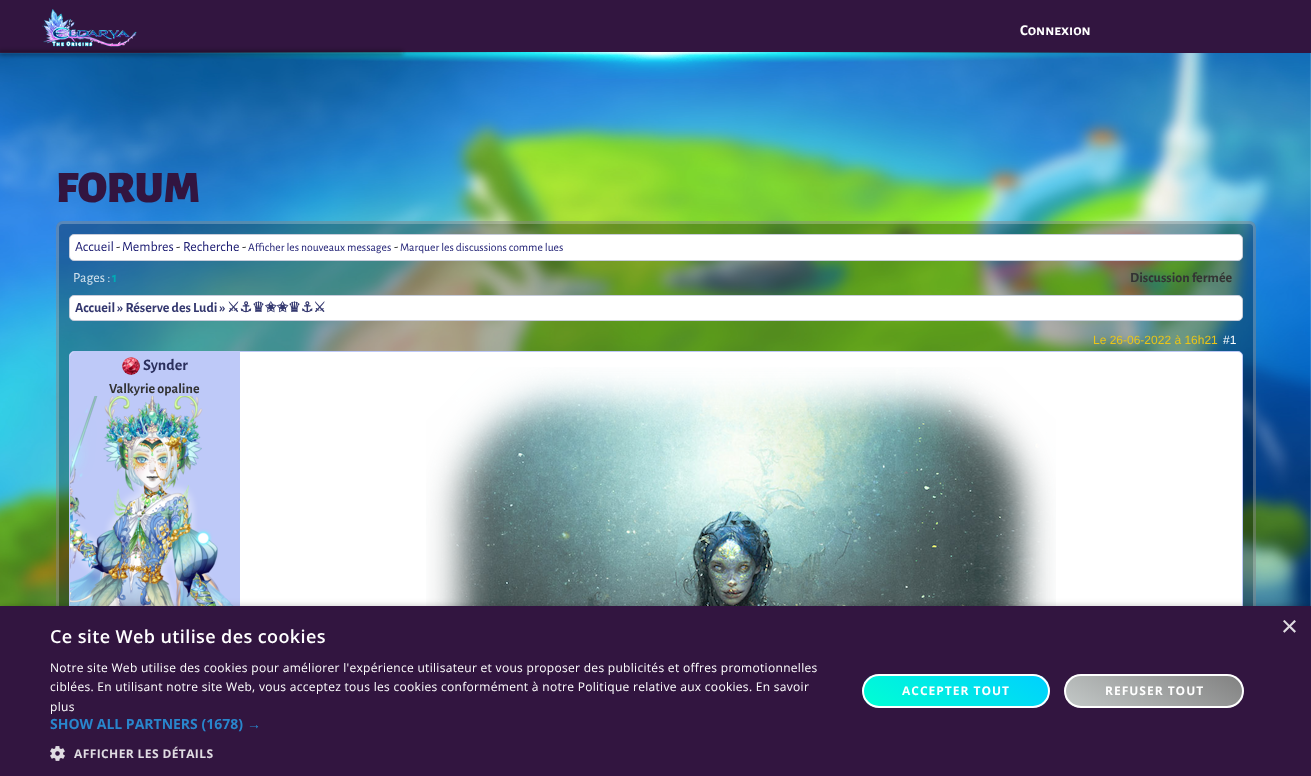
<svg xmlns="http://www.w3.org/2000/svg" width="1311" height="776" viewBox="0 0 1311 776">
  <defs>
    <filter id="blur1" x="-50%" y="-200%" width="200%" height="500%"><feGaussianBlur stdDeviation="2.5"/></filter>
    <filter id="blur2" x="-50%" y="-200%" width="200%" height="500%"><feGaussianBlur stdDeviation="4"/></filter>
    <clipPath id="clip1"><rect x="862" y="674" width="188" height="34" rx="17"/></clipPath>
    <linearGradient id="g1" gradientUnits="userSpaceOnUse" x1="987" y1="639" x2="925" y2="743"><stop offset="0" stop-color="#00d0ff"/><stop offset="1" stop-color="#00ffd3"/></linearGradient>
    <clipPath id="clip2"><rect x="1064" y="674" width="180" height="34" rx="17"/></clipPath>
    <linearGradient id="g2" gradientUnits="userSpaceOnUse" x1="1184" y1="641" x2="1124" y2="741"><stop offset="0" stop-color="#818181"/><stop offset="1" stop-color="#c3c8c7"/></linearGradient>
  </defs>
  <rect width="100%" height="100%" fill="#ffffff"/>
  <rect x="0" y="0" width="1311" height="53" fill="#321540"/>
  <image x="42" y="9" width="95" height="38" href="img1.png"/>
  <image x="0" y="53" width="1311" height="553" href="img3.png"/>
  <image x="149" y="52" width="1014" height="27" href="img2.png"/>
  <rect x="-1" y="51" width="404" height="4" fill="#1b1b1b" fill-opacity="0.41" filter="url(#blur1)"/>
  <text x="1020" y="35" font-family="Alegreya Sans SC" font-size="15" font-weight="bold" fill="#ffffff">Connexion</text>
  <text x="56" y="202" font-family="Alegreya Sans SC" font-size="45" font-weight="900" fill="#321540">FORUM</text>
  <rect x="56" y="221" width="1200" height="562" rx="7" fill="#000000" fill-opacity="0.3"/>
  <rect x="57.5" y="222.5" width="1197" height="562" rx="5.5" fill="none" stroke="#ffffff" stroke-opacity="0.25" stroke-width="3"/>
  <rect x="69.5" y="234.5" width="1173" height="26" rx="4.5" fill="#ffffff" stroke="#c7ccda"/>
  <text x="75" y="251" font-family="Alegreya Sans" font-size="14" fill="#191970">Accueil</text>
  <text x="116" y="251" font-family="Alegreya Sans" font-size="14" fill="#000000">-</text>
  <text x="122" y="251" font-family="Alegreya Sans" font-size="14" fill="#191970">Membres</text>
  <text x="176" y="251" font-family="Alegreya Sans" font-size="14" fill="#000000">-</text>
  <text x="183" y="251" font-family="Alegreya Sans" font-size="14" fill="#191970">Recherche</text>
  <text x="242" y="251" font-family="Alegreya Sans" font-size="14" fill="#000000">-</text>
  <text x="248" y="251" font-family="Alegreya Sans" font-size="11.7" fill="#191970">Afficher les nouveaux messages</text>
  <text x="394" y="251" font-family="Alegreya Sans" font-size="14" fill="#000000">-</text>
  <text x="400" y="251" font-family="Alegreya Sans" font-size="11.7" fill="#191970">Marquer les discussions comme lues</text>
  <text x="73" y="282" font-family="Alegreya Sans" font-size="14" fill="#d3e2ed">Pages :</text>
  <text x="112" y="282" font-family="Alegreya Sans" font-size="14" font-weight="bold" fill="#01abb5">1</text>
  <text x="1130" y="282" font-family="Alegreya Sans" font-size="14" font-weight="bold" fill="#333333">Discussion fermée</text>
  <rect x="69.5" y="295.5" width="1173" height="25" rx="4.5" fill="#ffffff" stroke="#c7ccda"/>
  <text x="75" y="312" font-family="Alegreya Sans" font-size="14" font-weight="bold" fill="#34386f">Accueil » Réserve des Ludi »</text>
  <text x="227" y="312" font-family="DejaVu Sans" font-size="14" font-weight="bold" fill="#34386f">⚔︎⚓︎♛✬✬♛⚓︎⚔︎</text>
  <text x="1093" y="344" font-family="Liberation Sans" font-size="12" fill="#ebc518">Le 26-06-2022 à 16h21</text>
  <text x="1223" y="344" font-family="Liberation Sans" font-size="12" fill="#ffffff">#1</text>
  <path d="M74 351.5H1238C1240.5 351.5 1242.5 353.5 1242.5 356V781.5H69.5V356C69.5 353.5 71.5 351.5 74 351.5Z" fill="#ffffff" stroke="#bec9f8"/>
  <path d="M74 352H240V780H70V356C70 354 72 352 74 352Z" fill="#bec9f8"/>
  <image x="122" y="357" width="18" height="18" href="img4.png"/>
  <text x="143" y="370" font-family="Alegreya Sans" font-size="16" font-weight="bold" fill="#2b2f5d">Synder</text>
  <text x="109" y="393" font-family="Alegreya Sans" font-size="14" font-weight="bold" fill="#333333">Valkyrie opaline</text>
  <image x="70" y="396" width="164" height="210" href="img5.png"/>
  <image x="426" y="367" width="630" height="239" href="img6.png"/>
  <rect x="1" y="608" width="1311" height="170" fill="#000000" fill-opacity="0.35" filter="url(#blur2)"/>
  <rect x="0" y="606" width="1311" height="170" fill="#321540"/>
  <text x="1281" y="636" font-family="Liberation Sans" font-size="29" fill="#e0dce2">×</text>
  <text x="50" y="643" font-family="Open Sans" font-size="18" font-weight="600" letter-spacing="0.4" fill="#ffffff">Ce site Web utilise des cookies</text>
  <text x="50" y="672" font-family="Open Sans" font-size="12" letter-spacing="0.3" fill="#ffffff">Notre site Web utilise des cookies pour améliorer l'expérience utilisateur et vous proposer des publicités et offres promotionnelles</text>
  <text x="50" y="691" font-family="Open Sans" font-size="12" letter-spacing="0.3" fill="#ffffff">ciblées. En utilisant notre site Web, vous acceptez tous les cookies conformément à notre Politique relative aux cookies. En savoir</text>
  <text x="50" y="711" font-family="Open Sans" font-size="12" letter-spacing="0.3" fill="#ffffff">plus</text>
  <text x="50" y="729" font-family="Open Sans" font-size="14" font-weight="bold" fill="#2986cc">SHOW ALL PARTNERS (1678)</text>
  <text x="247" y="729" font-family="Liberation Sans" font-size="14" font-weight="bold" fill="#2986cc">→</text>
  <image x="50" y="746" width="15" height="15" href="img7.png"/>
  <text x="74" y="758" font-family="Open Sans" font-size="12" font-weight="bold" letter-spacing="0.4" fill="#e0dce2">AFFICHER LES DÉTAILS</text>
  <g clip-path="url(#clip1)">
    <rect x="864" y="676" width="184" height="30" fill="url(#g1)"/>
  </g>
  <rect x="863" y="675" width="186" height="32" rx="16" fill="none" stroke="#ffffff" stroke-width="2"/>
  <text x="902" y="695" font-family="Open Sans" font-size="12" font-weight="bold" letter-spacing="1" fill="#ffffff">ACCEPTER TOUT</text>
  <g clip-path="url(#clip2)">
    <rect x="1066" y="676" width="176" height="30" fill="url(#g2)"/>
  </g>
  <rect x="1065" y="675" width="178" height="32" rx="16" fill="none" stroke="#ffffff" stroke-width="2"/>
  <text x="1105" y="695" font-family="Open Sans" font-size="12" font-weight="bold" letter-spacing="1" fill="#ffffff">REFUSER TOUT</text>
</svg>
